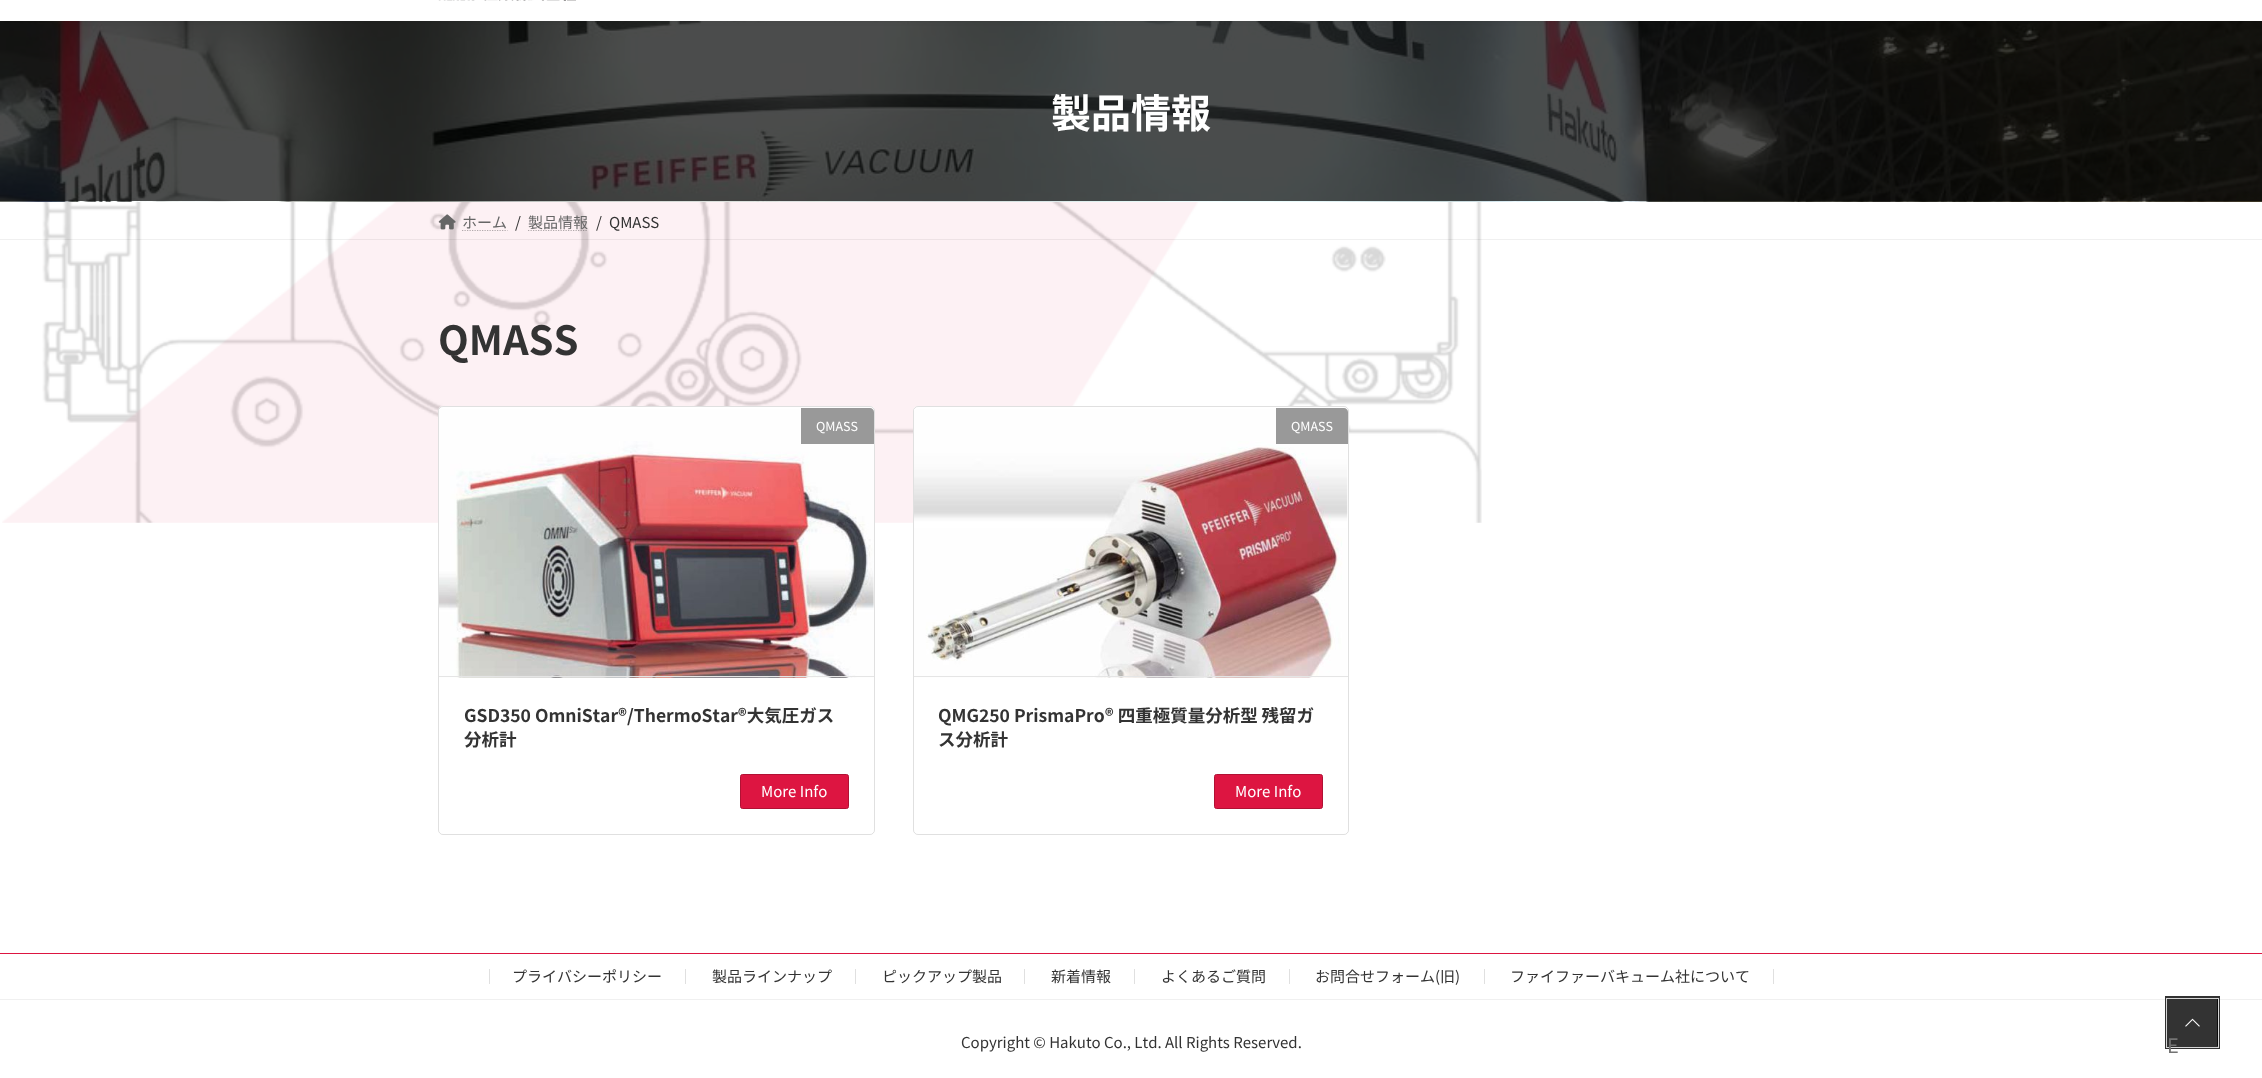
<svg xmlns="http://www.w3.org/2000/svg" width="2262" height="1078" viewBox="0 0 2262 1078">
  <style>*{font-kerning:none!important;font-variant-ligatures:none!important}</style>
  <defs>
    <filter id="blur1" x="-50%" y="-200%" width="200%" height="500%"><feGaussianBlur stdDeviation="2"/></filter>
  </defs>
  <rect width="100%" height="100%" fill="#ffffff"/>
  <image x="2" y="202" width="1480" height="321" href="img1.png"/>
  <image x="0" y="21" width="2262" height="181" href="img3.png"/>
  <rect x="0" y="-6" width="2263" height="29" fill="#000000" fill-opacity="0.05" filter="url(#blur1)"/>
  <rect x="0" y="0" width="2262" height="21" fill="#ffffff"/>
  <image x="438" y="0" width="138" height="1" href="img2.png"/>
  <text x="1051" y="128" font-family="Noto Sans JP" font-size="40" font-weight="bold" fill="#ffffff">製品情報</text>
  <rect x="0" y="239" width="2262" height="1" fill="#000000" fill-opacity="0.06"/>
  <image x="438" y="214" width="18" height="16" href="img4.png"/>
  <text x="462" y="228" font-family="Noto Sans JP" font-size="15" fill="#666666">ホーム</text>
  <path d="M462 230.5H507.5" fill="none" stroke="#b1a9ab" stroke-width="1.2" stroke-dasharray="1.25 1.25"/>
  <text x="515" y="228" font-family="Noto Sans JP" font-size="15" fill="#333333">/</text>
  <path d="M528 230.5H588" fill="none" stroke="#000000" stroke-opacity="0.3" stroke-width="1.2" stroke-dasharray="1.25 1.25"/>
  <text x="528" y="228" font-family="Noto Sans JP" font-size="15" fill="#666666">製品情報</text>
  <text x="596" y="228" font-family="Noto Sans JP" font-size="15" fill="#333333">/</text>
  <text x="609" y="228" font-family="Noto Sans JP" font-size="15" fill="#333333">QMASS</text>
  <text x="438" y="355" font-family="Noto Sans JP" font-size="40" font-weight="bold" fill="#333333">QMASS</text>
  <rect x="438" y="406" width="437" height="429" rx="5" fill="#ffffff"/>
  <rect x="438.5" y="406.5" width="436" height="428" rx="4.5" fill="none" stroke="#000000" stroke-opacity="0.12"/>
  <image x="439" y="409" width="435" height="269" href="img5.png"/>
  <rect x="439" y="676" width="435" height="1" fill="#e5e5e5"/>
  <path d="M801 408H870C872 408 874 410 874 412V444H801Z" fill="#999999"/>
  <text x="816" y="431" font-family="Noto Sans JP" font-size="12.5" fill="#ffffff">QMASS</text>
  <text x="464" y="722" font-family="Noto Sans JP" font-size="17.5" font-weight="bold" fill="#333333">GSD350 OmniStar®/ThermoStar®大気圧ガス</text>
  <text x="464" y="746" font-family="Noto Sans JP" font-size="17.5" font-weight="bold" fill="#333333">分析計</text>
  <rect x="740.5" y="774.5" width="108" height="34" rx="2" fill="#dd1541" stroke="#b11134"/>
  <text x="761" y="797" font-family="Noto Sans JP" font-size="15" fill="#ffffff">More Info</text>
  <rect x="913" y="406" width="436" height="429" rx="5" fill="#ffffff"/>
  <rect x="913.5" y="406.5" width="435" height="428" rx="4.5" fill="none" stroke="#000000" stroke-opacity="0.12"/>
  <image x="914" y="409" width="434" height="269" href="img6.png"/>
  <rect x="914" y="676" width="434" height="1" fill="#e5e5e5"/>
  <path d="M1276 408H1344C1346 408 1348 410 1348 412V444H1276Z" fill="#999999"/>
  <text x="1291" y="431" font-family="Noto Sans JP" font-size="12.5" fill="#ffffff">QMASS</text>
  <text x="938" y="722" font-family="Noto Sans JP" font-size="17.5" font-weight="bold" fill="#333333">QMG250 PrismaPro® 四重極質量分析型 残留ガ</text>
  <text x="938" y="746" font-family="Noto Sans JP" font-size="17.5" font-weight="bold" fill="#333333">ス分析計</text>
  <rect x="1214.5" y="774.5" width="108" height="34" rx="2" fill="#dd1541" stroke="#b11134"/>
  <text x="1235" y="797" font-family="Noto Sans JP" font-size="15" fill="#ffffff">More Info</text>
  <rect x="0" y="953" width="2262" height="1" fill="#dd1541"/>
  <rect x="0" y="999" width="2262" height="1" fill="#f0f0f0"/>
  <rect x="685" y="969" width="1" height="15" fill="#e0e0e0"/>
  <rect x="489" y="969" width="1" height="15" fill="#e0e0e0"/>
  <text x="512" y="982" font-family="Noto Sans JP" font-size="15" fill="#333333">プライバシーポリシー</text>
  <rect x="855" y="969" width="1" height="15" fill="#e0e0e0"/>
  <text x="712" y="982" font-family="Noto Sans JP" font-size="15" fill="#333333">製品ラインナップ</text>
  <rect x="1024" y="969" width="1" height="15" fill="#e0e0e0"/>
  <text x="882" y="982" font-family="Noto Sans JP" font-size="15" fill="#333333">ピックアップ製品</text>
  <rect x="1134" y="969" width="1" height="15" fill="#e0e0e0"/>
  <text x="1051" y="982" font-family="Noto Sans JP" font-size="15" fill="#333333">新着情報</text>
  <rect x="1289" y="969" width="1" height="15" fill="#e0e0e0"/>
  <text x="1161" y="982" font-family="Noto Sans JP" font-size="15" fill="#333333">よくあるご質問</text>
  <rect x="1484" y="969" width="1" height="15" fill="#e0e0e0"/>
  <text x="1315" y="982" font-family="Noto Sans JP" font-size="15" fill="#333333">お問合せフォーム(旧)</text>
  <rect x="1773" y="969" width="1" height="15" fill="#e0e0e0"/>
  <text x="1510" y="982" font-family="Noto Sans JP" font-size="15" fill="#333333">ファイファーバキューム社について</text>
  <text x="961" y="1048" font-family="Noto Sans JP" font-size="15" fill="#333333">Copyright © Hakuto Co., Ltd. All Rights Reserved.</text>
  <rect x="2166.5" y="997.5" width="52" height="50" fill="none" stroke="#000000" stroke-opacity="0.8" stroke-width="3"/>
  <rect x="2166.5" y="998.5" width="52" height="49" fill="none" stroke="#ffffff" stroke-opacity="0.8"/>
  <rect x="2168" y="999" width="50" height="47" fill="#000000" fill-opacity="0.8"/>
  <image x="2185" y="1018" width="15" height="9" href="img7.png"/>
  <text x="2167" y="1053" font-family="Noto Sans JP" font-size="20" fill="#737373">E</text>
</svg>
